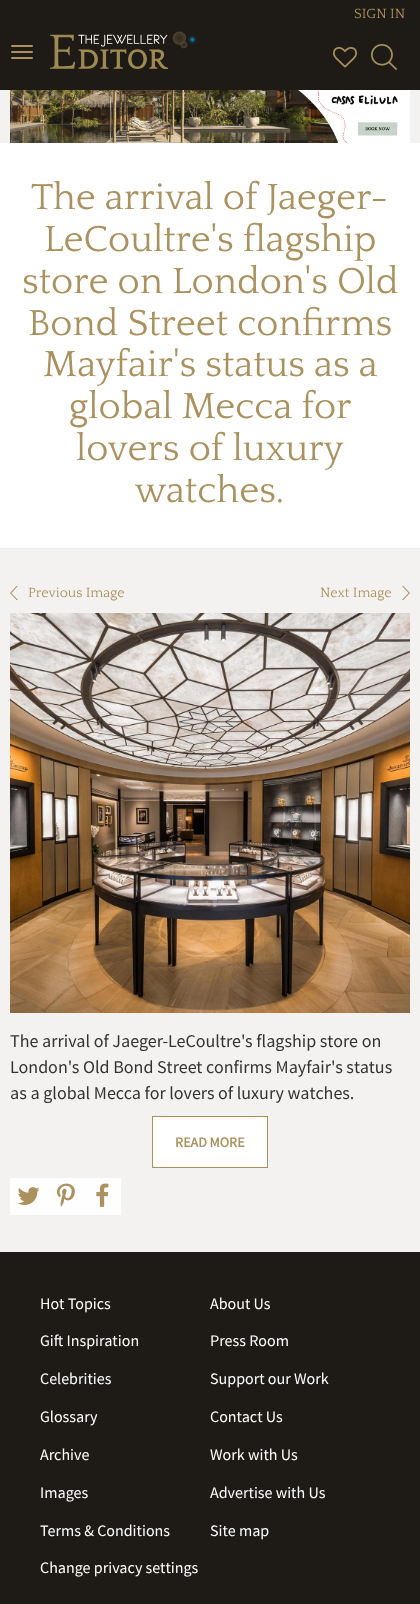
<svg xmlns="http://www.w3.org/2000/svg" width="420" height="1604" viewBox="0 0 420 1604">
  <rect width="100%" height="100%" fill="#f3f2f0"/>
  <rect x="0" y="0" width="420" height="90" fill="#1e1b16"/>
  <text x="354" y="18" font-family="Quattrocento" font-size="14" fill="#aa915e">SIGN IN</text>
  <image x="333" y="47" width="24" height="21" href="img1.png"/>
  <image x="371" y="44" width="26" height="26" href="img2.png"/>
  <rect x="11" y="45" width="22" height="2" rx="1" fill="#aa915e"/>
  <rect x="11" y="51" width="22" height="2" rx="1" fill="#aa915e"/>
  <rect x="11" y="57" width="22" height="2" rx="1" fill="#aa915e"/>
  <image x="50" y="31" width="147" height="38" href="img3.png"/>
  <image x="10" y="90" width="400" height="53" href="img4.png"/>
  <rect x="0" y="143" width="420" height="405" fill="#ffffff"/>
  <rect x="0" y="548" width="420" height="1" fill="#eeeeee"/>
  <text x="31" y="209" font-family="Quattrocento" font-size="38" fill="#aa915e">The arrival of Jaeger-</text>
  <text x="44" y="251" font-family="Quattrocento" font-size="38" fill="#aa915e">LeCoultre's flagship</text>
  <text x="22" y="293" font-family="Quattrocento" font-size="38" fill="#aa915e">store on London's Old</text>
  <text x="28" y="335" font-family="Quattrocento" font-size="38" fill="#aa915e">Bond Street confirms</text>
  <text x="43" y="376" font-family="Quattrocento" font-size="38" fill="#aa915e">Mayfair's status as a</text>
  <text x="69" y="418" font-family="Quattrocento" font-size="38" fill="#aa915e">global Mecca for</text>
  <text x="76" y="460" font-family="Quattrocento" font-size="38" fill="#aa915e">lovers of luxury</text>
  <text x="135" y="502" font-family="Quattrocento" font-size="38" fill="#aa915e">watches.</text>
  <image x="10" y="586" width="8" height="14" href="img5.png"/>
  <text x="28" y="597" font-family="Quattrocento" font-size="14" fill="#aa915e">Previous Image</text>
  <text x="320" y="597" font-family="Quattrocento" font-size="14" fill="#aa915e">Next Image</text>
  <image x="402" y="586" width="8" height="14" href="img6.png"/>
  <image x="10" y="613" width="400" height="400" href="img7.png"/>
  <text x="10" y="1047" font-family="Source Sans Pro" font-size="18" fill="#333333">The arrival of Jaeger-LeCoultre's flagship store on</text>
  <text x="10" y="1073" font-family="Source Sans Pro" font-size="18" fill="#333333">London's Old Bond Street confirms Mayfair's status</text>
  <text x="10" y="1099" font-family="Source Sans Pro" font-size="18" fill="#333333">as a global Mecca for lovers of luxury watches.</text>
  <rect x="152.5" y="1116.5" width="115" height="51" fill="#ffffff" stroke="#aa915e"/>
  <text x="175" y="1147" font-family="Source Sans Pro" font-size="14" font-weight="bold" fill="#aa915e">READ MORE</text>
  <rect x="10" y="1178" width="111" height="37" fill="#fefefe"/>
  <image x="17" y="1187" width="23" height="18" href="img8.png"/>
  <image x="57" y="1183" width="18" height="24" href="img9.png"/>
  <image x="96" y="1183" width="13" height="24" href="img10.png"/>
  <rect x="0" y="1252" width="420" height="352" fill="#1e1b16"/>
  <text x="40" y="1309" font-family="Source Sans Pro" font-size="16" fill="#ffffff">Hot Topics</text>
  <text x="40" y="1346" font-family="Source Sans Pro" font-size="16" fill="#ffffff">Gift Inspiration</text>
  <text x="40" y="1384" font-family="Source Sans Pro" font-size="16" fill="#ffffff">Celebrities</text>
  <text x="40" y="1422" font-family="Source Sans Pro" font-size="16" fill="#ffffff">Glossary</text>
  <text x="40" y="1460" font-family="Source Sans Pro" font-size="16" fill="#ffffff">Archive</text>
  <text x="40" y="1498" font-family="Source Sans Pro" font-size="16" fill="#ffffff">Images</text>
  <text x="40" y="1536" font-family="Source Sans Pro" font-size="16" fill="#ffffff">Terms &amp; Conditions</text>
  <text x="40" y="1573" font-family="Source Sans Pro" font-size="16" fill="#ffffff">Change privacy settings</text>
  <text x="210" y="1309" font-family="Source Sans Pro" font-size="16" fill="#ffffff">About Us</text>
  <text x="210" y="1346" font-family="Source Sans Pro" font-size="16" fill="#ffffff">Press Room</text>
  <text x="210" y="1384" font-family="Source Sans Pro" font-size="16" fill="#ffffff">Support our Work</text>
  <text x="210" y="1422" font-family="Source Sans Pro" font-size="16" fill="#ffffff">Contact Us</text>
  <text x="210" y="1460" font-family="Source Sans Pro" font-size="16" fill="#ffffff">Work with Us</text>
  <text x="210" y="1498" font-family="Source Sans Pro" font-size="16" fill="#ffffff">Advertise with Us</text>
  <text x="210" y="1536" font-family="Source Sans Pro" font-size="16" fill="#ffffff">Site map</text>
</svg>
